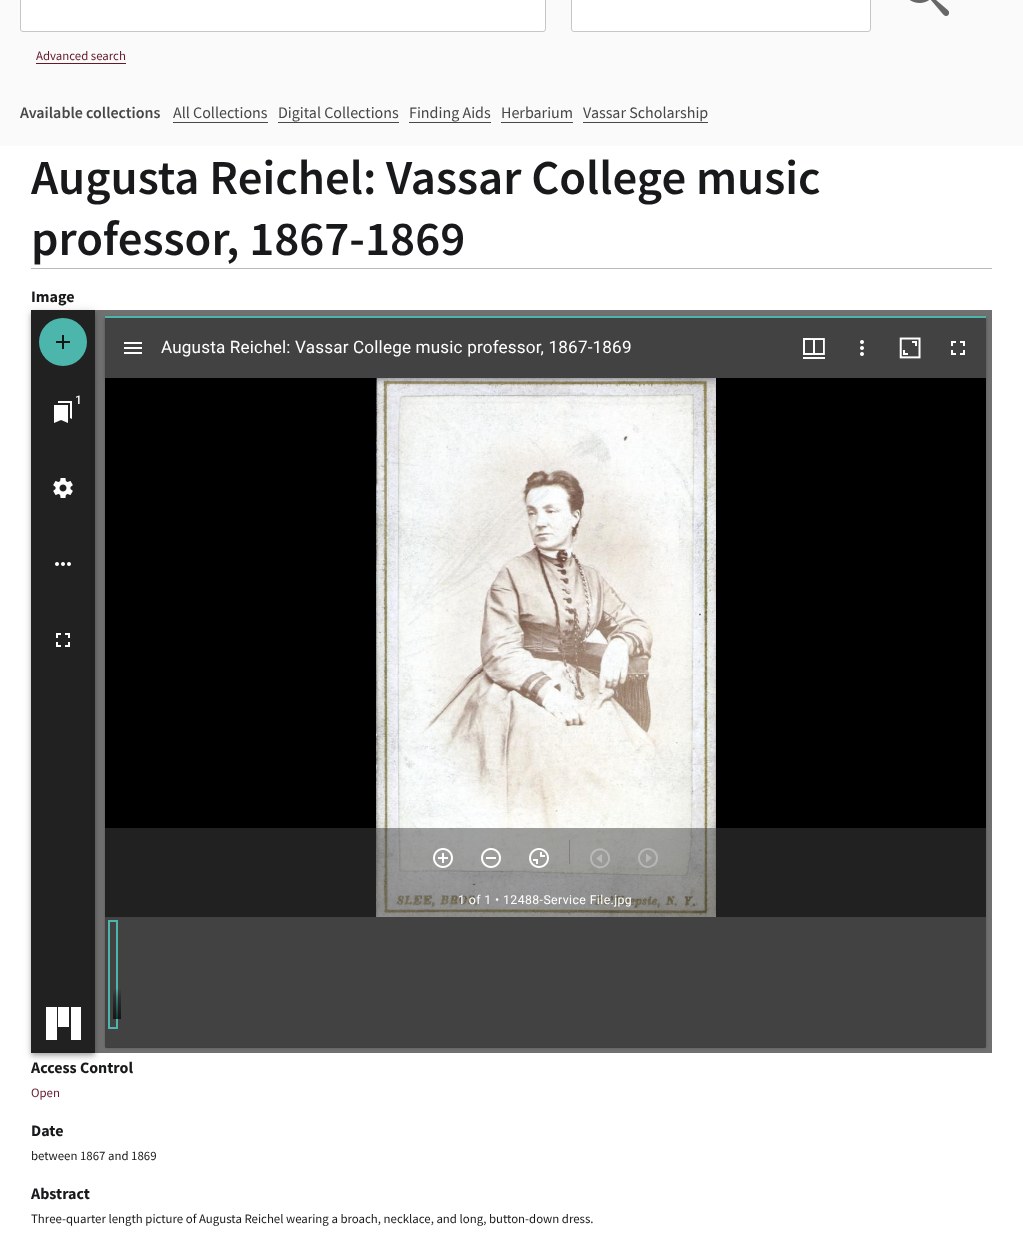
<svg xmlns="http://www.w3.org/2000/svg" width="1023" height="1238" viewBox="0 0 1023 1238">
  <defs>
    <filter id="blur1" x="-50%" y="-200%" width="200%" height="500%"><feGaussianBlur stdDeviation="0.5"/></filter>
    <filter id="blur2" x="-50%" y="-200%" width="200%" height="500%"><feGaussianBlur stdDeviation="1.5"/></filter>
    <clipPath id="clip1"><rect x="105" y="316" width="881" height="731"/></clipPath>
    <filter id="blur3" x="-50%" y="-200%" width="200%" height="500%"><feGaussianBlur stdDeviation="5"/></filter>
    <filter id="blur4" x="-50%" y="-200%" width="200%" height="500%"><feGaussianBlur stdDeviation="2.5"/></filter>
    <filter id="blur5" x="-50%" y="-200%" width="200%" height="500%"><feGaussianBlur stdDeviation="2"/></filter>
    <linearGradient id="g1" gradientUnits="userSpaceOnUse" x1="117" y1="1019" x2="117" y2="988"><stop offset="0" stop-color="#000000" stop-opacity="0.7"/><stop offset="0.7" stop-color="#000000" stop-opacity="0.3"/><stop offset="1" stop-color="#000000" stop-opacity="0"/></linearGradient>
  </defs>
  <rect width="100%" height="100%" fill="#ffffff"/>
  <rect x="0" y="0" width="1023" height="146" fill="#fafafa"/>
  <rect x="20.5" y="-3.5" width="525" height="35" rx="2.5" fill="#ffffff" stroke="#c5c6c6"/>
  <rect x="571.5" y="-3.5" width="299" height="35" rx="2.5" fill="#ffffff" stroke="#c5c6c6"/>
  <image x="910" y="0" width="39" height="16" href="img1.png"/>
  <text x="36" y="60" font-family="Source Sans Pro" font-size="12.8" fill="#641a2b">Advanced search</text>
  <rect x="36" y="63" width="90" height="1" fill="#641a2b"/>
  <text x="20" y="118" font-family="Source Sans Pro" font-size="16" font-weight="600" fill="#464748">Available collections</text>
  <text x="173" y="118" font-family="Source Sans Pro" font-size="16" fill="#464748">All Collections</text>
  <rect x="173" y="122" width="95" height="1" fill="#464748"/>
  <text x="278" y="118" font-family="Source Sans Pro" font-size="16" fill="#464748">Digital Collections</text>
  <rect x="278" y="122" width="121" height="1" fill="#464748"/>
  <text x="409" y="118" font-family="Source Sans Pro" font-size="16" fill="#464748">Finding Aids</text>
  <rect x="409" y="122" width="82" height="1" fill="#464748"/>
  <text x="501" y="118" font-family="Source Sans Pro" font-size="16" fill="#464748">Herbarium</text>
  <rect x="501" y="122" width="72" height="1" fill="#464748"/>
  <text x="583" y="118" font-family="Source Sans Pro" font-size="16" fill="#464748">Vassar Scholarship</text>
  <rect x="583" y="122" width="125" height="1" fill="#464748"/>
  <rect x="31" y="268" width="961" height="1" fill="#bababa"/>
  <text x="31" y="194" font-family="Source Sans Pro" font-size="48.8" font-weight="600" fill="#18191a">Augusta Reichel: Vassar College music</text>
  <text x="31" y="255" font-family="Source Sans Pro" font-size="48.8" font-weight="600" fill="#18191a">professor, 1867-1869</text>
  <text x="31" y="302" font-family="Source Sans Pro" font-size="16" font-weight="bold" fill="#18191a">Image</text>
  <rect x="95" y="310" width="897" height="743" fill="#707070"/>
  <rect x="106" y="319" width="879" height="729" fill="#000000" fill-opacity="0.2" filter="url(#blur1)"/>
  <rect x="105" y="317" width="881" height="731" fill="#000000" fill-opacity="0.2" filter="url(#blur1)"/>
  <rect x="105" y="317" width="881" height="731" fill="#000000" fill-opacity="0.2" filter="url(#blur2)"/>
  <rect x="105" y="378" width="881" height="539" fill="#000000"/>
  <image x="376" y="378" width="340" height="539" href="img12.png"/>
  <g clip-path="url(#clip1)">
    <rect x="105" y="317" width="881" height="62" fill="#000000" fill-opacity="0.12" filter="url(#blur3)"/>
    <rect x="105" y="320" width="881" height="62" fill="#000000" fill-opacity="0.14" filter="url(#blur4)"/>
  </g>
  <rect x="106" y="319" width="879" height="60" fill="#000000" fill-opacity="0.2" filter="url(#blur5)"/>
  <rect x="105" y="318" width="881" height="60" fill="#424242"/>
  <rect x="105" y="316" width="881" height="2" fill="#4db6ac"/>
  <rect x="105" y="828" width="881" height="89" fill="#424242" fill-opacity="0.5"/>
  <rect x="105" y="917" width="881" height="130" fill="#424242"/>
  <rect x="109" y="921" width="8" height="107" fill="none" stroke="#4db6ac" stroke-width="2"/>
  <rect x="31" y="311" width="64" height="743" fill="#000000" fill-opacity="0.12" filter="url(#blur3)"/>
  <rect x="31" y="314" width="64" height="743" fill="#000000" fill-opacity="0.14" filter="url(#blur4)"/>
  <rect x="32" y="313" width="62" height="741" fill="#000000" fill-opacity="0.2" filter="url(#blur5)"/>
  <rect x="31" y="310" width="64" height="743" fill="#212121"/>
  <circle cx="63" cy="342" r="24" fill="#4db6ac"/>
  <image x="56" y="335" width="14" height="14" href="img2.png"/>
  <text x="75" y="404" font-family="Roboto" font-size="12" font-weight="500" fill="#ffffff">1</text>
  <image x="54" y="401" width="18" height="22" href="img3.png"/>
  <image x="53" y="478" width="20" height="20" href="img4.png"/>
  <image x="55" y="562" width="16" height="4" href="img5.png"/>
  <image x="56" y="633" width="14" height="14" href="img6.png"/>
  <rect x="46" y="1007" width="11" height="33" fill="#ffffff"/>
  <rect x="71" y="1007" width="10" height="33" fill="#ffffff"/>
  <rect x="58" y="1007" width="11" height="20" fill="#ffffff"/>
  <image x="124" y="342" width="18" height="12" href="img7.png"/>
  <text x="161" y="353" font-family="Roboto" font-size="17.1" letter-spacing="0.17" fill="#ffffff">Augusta Reichel: Vassar College music professor, 1867-1869</text>
  <image x="803" y="338" width="22" height="21" href="img8.png"/>
  <image x="860" y="340" width="4" height="16" href="img9.png"/>
  <image x="899" y="337" width="22" height="22" href="img10.png"/>
  <image x="951" y="341" width="14" height="14" href="img11.png"/>
  <image x="433" y="848" width="20" height="20" href="img13.png"/>
  <image x="481" y="848" width="20" height="20" href="img14.png"/>
  <image x="529" y="848" width="20" height="20" href="img15.png"/>
  <rect x="569" y="840" width="1" height="24" fill="#808080"/>
  <image x="590" y="848" width="20" height="21" href="img16.png"/>
  <image x="638" y="848" width="20" height="20" href="img17.png"/>
  <text x="458" y="904" font-family="Roboto" font-size="12.3" letter-spacing="0.4" fill="#ffffff">1 of 1 • 12488-Service File.jpg</text>
  <rect x="113" y="988" width="8" height="31" fill="url(#g1)"/>
  <text x="31" y="1073" font-family="Source Sans Pro" font-size="16" font-weight="bold" fill="#18191a">Access Control</text>
  <text x="31" y="1097" font-family="Source Sans Pro" font-size="12.8" fill="#641a2b">Open</text>
  <text x="31" y="1136" font-family="Source Sans Pro" font-size="16" font-weight="bold" fill="#18191a">Date</text>
  <text x="31" y="1160" font-family="Source Sans Pro" font-size="12.8" fill="#18191a">between 1867 and 1869</text>
  <text x="31" y="1199" font-family="Source Sans Pro" font-size="16" font-weight="bold" fill="#18191a">Abstract</text>
  <text x="31" y="1223" font-family="Source Sans Pro" font-size="12.8" fill="#18191a">Three-quarter length picture of Augusta Reichel wearing a broach, necklace, and long, button-down dress.</text>
</svg>
